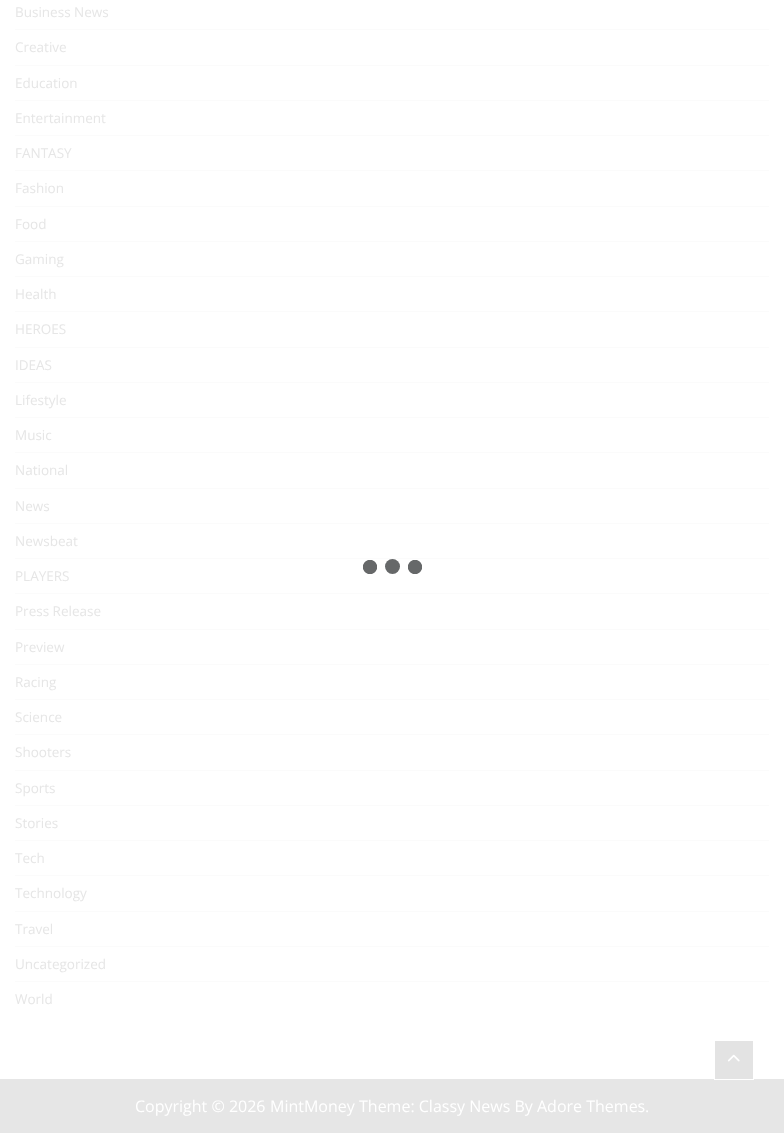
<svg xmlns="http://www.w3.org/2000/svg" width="784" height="1133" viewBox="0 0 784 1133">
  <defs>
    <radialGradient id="g1" gradientUnits="userSpaceOnUse" cx="415" cy="567" r="7.5"><stop offset="0.9" stop-color="#666869"/><stop offset="1" stop-color="#ffffff"/></radialGradient>
    <radialGradient id="g2" gradientUnits="userSpaceOnUse" cx="370" cy="567" r="7.5"><stop offset="0.9" stop-color="#666869"/><stop offset="1" stop-color="#ffffff"/></radialGradient>
  </defs>
  <rect width="100%" height="100%" fill="#ffffff"/>
  <rect x="15" y="29" width="754" height="1" fill="#fbfbfb"/>
  <text x="15" y="17" font-family="Open Sans" font-size="13.5" fill="#e6e6e6">Business News</text>
  <rect x="15" y="65" width="754" height="1" fill="#fbfbfb"/>
  <text x="15" y="52" font-family="Open Sans" font-size="13.5" fill="#e6e6e6">Creative</text>
  <rect x="15" y="100" width="754" height="1" fill="#fbfbfb"/>
  <text x="15" y="88" font-family="Open Sans" font-size="13.5" fill="#e6e6e6">Education</text>
  <rect x="15" y="135" width="754" height="1" fill="#fbfbfb"/>
  <text x="15" y="123" font-family="Open Sans" font-size="13.5" fill="#e6e6e6">Entertainment</text>
  <rect x="15" y="170" width="754" height="1" fill="#fbfbfb"/>
  <text x="15" y="158" font-family="Open Sans" font-size="13.5" fill="#e6e6e6">FANTASY</text>
  <rect x="15" y="206" width="754" height="1" fill="#fbfbfb"/>
  <text x="15" y="193" font-family="Open Sans" font-size="13.5" fill="#e6e6e6">Fashion</text>
  <rect x="15" y="241" width="754" height="1" fill="#fbfbfb"/>
  <text x="15" y="229" font-family="Open Sans" font-size="13.5" fill="#e6e6e6">Food</text>
  <rect x="15" y="276" width="754" height="1" fill="#fbfbfb"/>
  <text x="15" y="264" font-family="Open Sans" font-size="13.5" fill="#e6e6e6">Gaming</text>
  <rect x="15" y="311" width="754" height="1" fill="#fbfbfb"/>
  <text x="15" y="299" font-family="Open Sans" font-size="13.5" fill="#e6e6e6">Health</text>
  <rect x="15" y="347" width="754" height="1" fill="#fbfbfb"/>
  <text x="15" y="334" font-family="Open Sans" font-size="13.5" fill="#e6e6e6">HEROES</text>
  <rect x="15" y="382" width="754" height="1" fill="#fbfbfb"/>
  <text x="15" y="370" font-family="Open Sans" font-size="13.5" fill="#e6e6e6">IDEAS</text>
  <rect x="15" y="417" width="754" height="1" fill="#fbfbfb"/>
  <text x="15" y="405" font-family="Open Sans" font-size="13.5" fill="#e6e6e6">Lifestyle</text>
  <rect x="15" y="452" width="754" height="1" fill="#fbfbfb"/>
  <text x="15" y="440" font-family="Open Sans" font-size="13.5" fill="#e6e6e6">Music</text>
  <rect x="15" y="488" width="754" height="1" fill="#fbfbfb"/>
  <text x="15" y="475" font-family="Open Sans" font-size="13.5" fill="#e6e6e6">National</text>
  <rect x="15" y="523" width="754" height="1" fill="#fbfbfb"/>
  <text x="15" y="511" font-family="Open Sans" font-size="13.5" fill="#e6e6e6">News</text>
  <rect x="15" y="558" width="754" height="1" fill="#fbfbfb"/>
  <text x="15" y="546" font-family="Open Sans" font-size="13.5" fill="#e6e6e6">Newsbeat</text>
  <rect x="15" y="593" width="754" height="1" fill="#fbfbfb"/>
  <text x="15" y="581" font-family="Open Sans" font-size="13.5" fill="#e6e6e6">PLAYERS</text>
  <rect x="15" y="629" width="754" height="1" fill="#fbfbfb"/>
  <text x="15" y="616" font-family="Open Sans" font-size="13.5" fill="#e6e6e6">Press Release</text>
  <rect x="15" y="664" width="754" height="1" fill="#fbfbfb"/>
  <text x="15" y="652" font-family="Open Sans" font-size="13.5" fill="#e6e6e6">Preview</text>
  <rect x="15" y="699" width="754" height="1" fill="#fbfbfb"/>
  <text x="15" y="687" font-family="Open Sans" font-size="13.5" fill="#e6e6e6">Racing</text>
  <rect x="15" y="734" width="754" height="1" fill="#fbfbfb"/>
  <text x="15" y="722" font-family="Open Sans" font-size="13.5" fill="#e6e6e6">Science</text>
  <rect x="15" y="770" width="754" height="1" fill="#fbfbfb"/>
  <text x="15" y="757" font-family="Open Sans" font-size="13.5" fill="#e6e6e6">Shooters</text>
  <rect x="15" y="805" width="754" height="1" fill="#fbfbfb"/>
  <text x="15" y="793" font-family="Open Sans" font-size="13.5" fill="#e6e6e6">Sports</text>
  <rect x="15" y="840" width="754" height="1" fill="#fbfbfb"/>
  <text x="15" y="828" font-family="Open Sans" font-size="13.5" fill="#e6e6e6">Stories</text>
  <rect x="15" y="875" width="754" height="1" fill="#fbfbfb"/>
  <text x="15" y="863" font-family="Open Sans" font-size="13.5" fill="#e6e6e6">Tech</text>
  <rect x="15" y="911" width="754" height="1" fill="#fbfbfb"/>
  <text x="15" y="898" font-family="Open Sans" font-size="13.5" fill="#e6e6e6">Technology</text>
  <rect x="15" y="946" width="754" height="1" fill="#fbfbfb"/>
  <text x="15" y="934" font-family="Open Sans" font-size="13.5" fill="#e6e6e6">Travel</text>
  <rect x="15" y="981" width="754" height="1" fill="#fbfbfb"/>
  <text x="15" y="969" font-family="Open Sans" font-size="13.5" fill="#e6e6e6">Uncategorized</text>
  <text x="15" y="1004" font-family="Open Sans" font-size="13.5" fill="#e6e6e6">World</text>
  <rect x="408" y="560" width="14" height="14" fill="url(#g1)"/>
  <rect x="363" y="560" width="14" height="14" fill="url(#g2)"/>
  <circle cx="392.5" cy="566.5" r="7.5" fill="#666869"/>
  <rect x="0" y="1079" width="784" height="54" fill="#e6e6e6"/>
  <rect x="714.5" y="1040.5" width="39" height="39" fill="#e3e3e3" stroke="#ffffff"/>
  <image x="727" y="1054" width="13" height="8" href="img1.png"/>
  <text x="135" y="1112" font-family="Open Sans" font-size="16" fill="#ffffff">Copyright © 2026</text>
  <text x="270" y="1112" font-family="Open Sans" font-size="16" fill="#ffffff">MintMoney</text>
  <text x="359" y="1112" font-family="Open Sans" font-size="16" fill="#ffffff">Theme: Classy News By</text>
  <text x="537" y="1112" font-family="Open Sans" font-size="16" fill="#ffffff">Adore Themes</text>
  <text x="645" y="1112" font-family="Open Sans" font-size="16" fill="#ffffff">.</text>
</svg>
